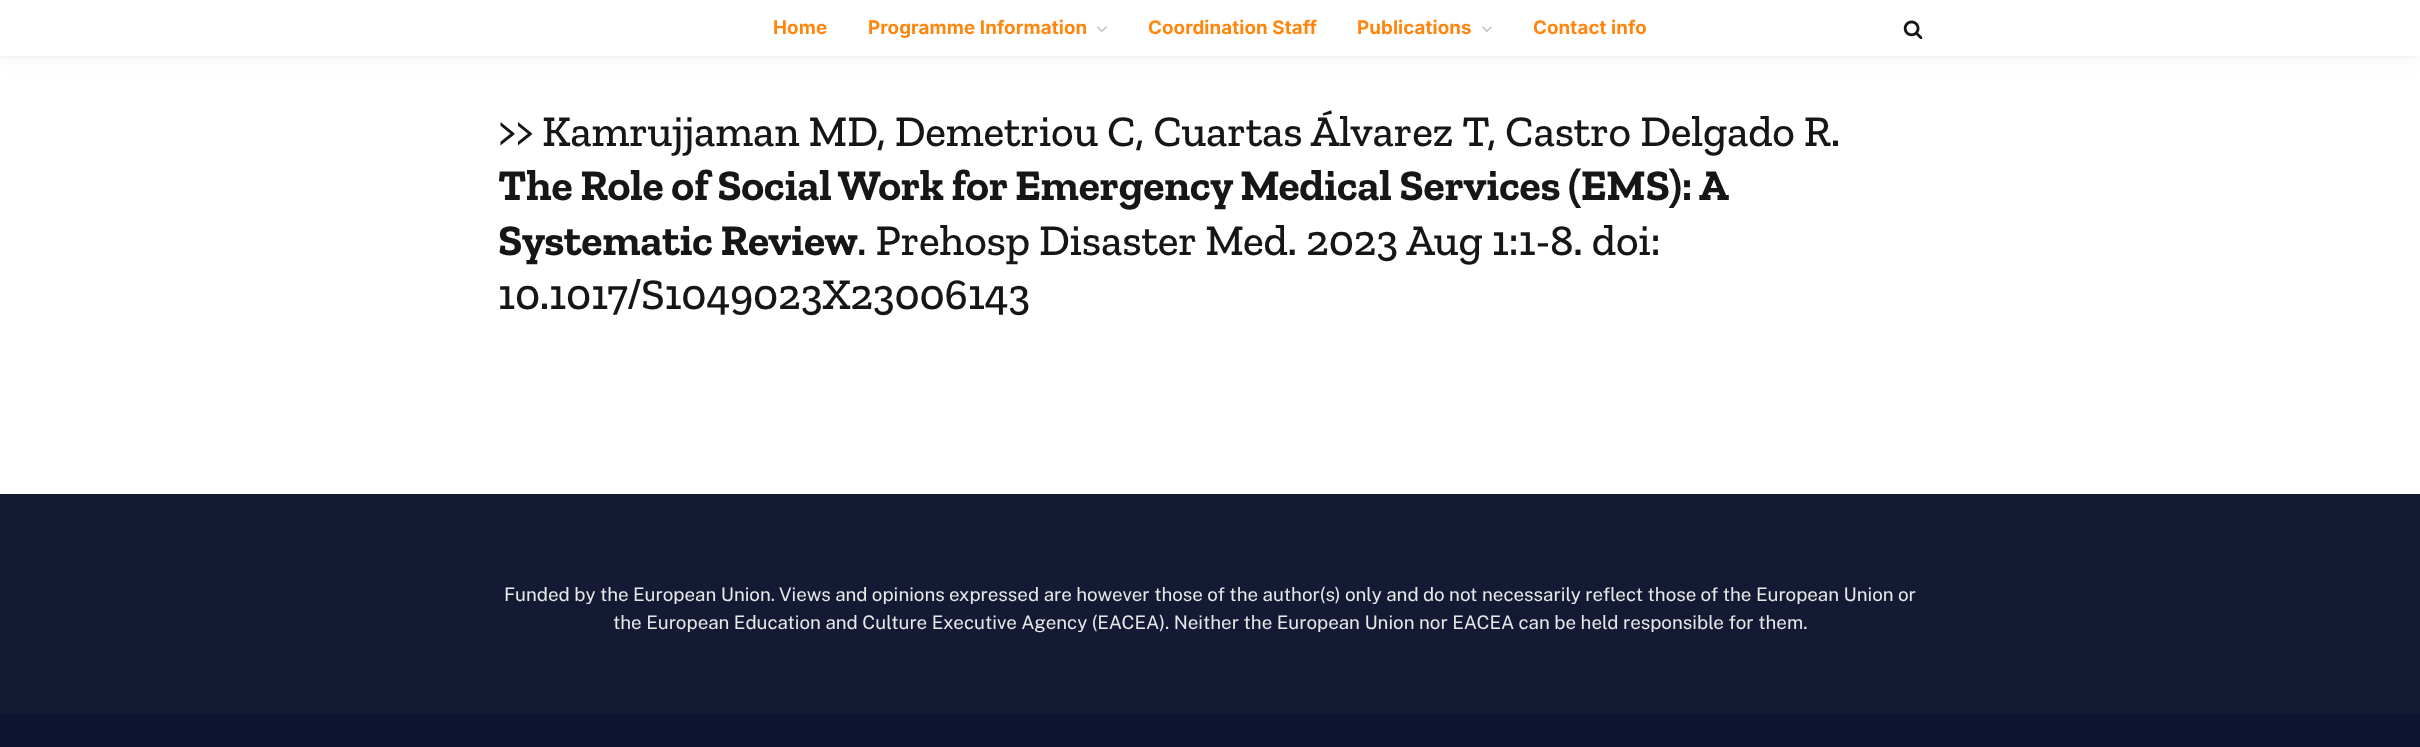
<svg xmlns="http://www.w3.org/2000/svg" width="2420" height="747" viewBox="0 0 2420 747">
  <defs>
    <filter id="blur1" x="-50%" y="-200%" width="200%" height="500%"><feGaussianBlur stdDeviation="2.5"/></filter>
    <filter id="blur2" x="-50%" y="-200%" width="200%" height="500%"><feGaussianBlur stdDeviation="12.5"/></filter>
  </defs>
  <rect width="100%" height="100%" fill="#ffffff"/>
  <rect x="0" y="-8" width="2420" height="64" fill="#000000" fill-opacity="0.05" filter="url(#blur1)"/>
  <rect x="0" y="0" width="2420" height="56" fill="#000000" fill-opacity="0.05" filter="url(#blur2)"/>
  <rect x="0" y="0" width="2420" height="56" fill="#ffffff"/>
  <text x="773" y="34" font-family="Inter" font-size="18.75" font-weight="bold" letter-spacing="0.1" fill="#ff850c">Home</text>
  <text x="868" y="34" font-family="Inter" font-size="18.75" font-weight="bold" letter-spacing="0.1" fill="#ff850c">Programme Information</text>
  <image x="1097" y="26" width="10" height="6" href="img1.png"/>
  <text x="1148" y="34" font-family="Inter" font-size="18.75" font-weight="bold" letter-spacing="0.1" fill="#ff850c">Coordination Staff</text>
  <text x="1357" y="34" font-family="Inter" font-size="18.75" font-weight="bold" letter-spacing="0.1" fill="#ff850c">Publications</text>
  <image x="1482" y="26" width="10" height="6" href="img1.png"/>
  <text x="1533" y="34" font-family="Inter" font-size="18.75" font-weight="bold" letter-spacing="0.1" fill="#ff850c">Contact info</text>
  <image x="1903" y="20" width="20" height="20" href="img2.png"/>
  <text x="498" y="146" font-family="Zilla Slab" font-size="43.75" font-weight="500" letter-spacing="-0.22" fill="#161616">&gt;&gt; Kamrujjaman MD, Demetriou C, Cuartas Álvarez T, Castro Delgado R.</text>
  <text x="498" y="200" word-spacing="-0.1" font-family="Zilla Slab" font-size="43.75" font-weight="bold" letter-spacing="-0.22" fill="#161616">The Role of Social Work for Emergency Medical Services (EMS): A</text>
  <text x="498" y="255" font-family="Zilla Slab" font-size="43.75" font-weight="bold" letter-spacing="-0.22" fill="#161616">Systematic Review</text>
  <text x="857" y="255" font-family="Zilla Slab" font-size="43.75" font-weight="500" letter-spacing="-0.22" fill="#161616">. Prehosp Disaster Med. 2023 Aug 1:1-8. doi:</text>
  <text x="498" y="309" font-family="Zilla Slab" font-size="43.75" font-weight="500" letter-spacing="-0.22" fill="#161616">10.1017/S1049023X23006143</text>
  <rect x="0" y="494" width="2420" height="219" fill="#141a34"/>
  <text x="504" y="601" font-family="Public Sans" font-size="18.75" fill="#e8e8e8">Funded by the European Union. Views and opinions expressed are however those of the author(s) only and do not necessarily reflect those of the European Union or</text>
  <text x="613" y="629" font-family="Public Sans" font-size="18.75" fill="#e8e8e8">the European Education and Culture Executive Agency (EACEA). Neither the European Union nor EACEA can be held responsible for them.</text>
  <rect x="0" y="713" width="2420" height="34" fill="#0f1430"/>
</svg>
